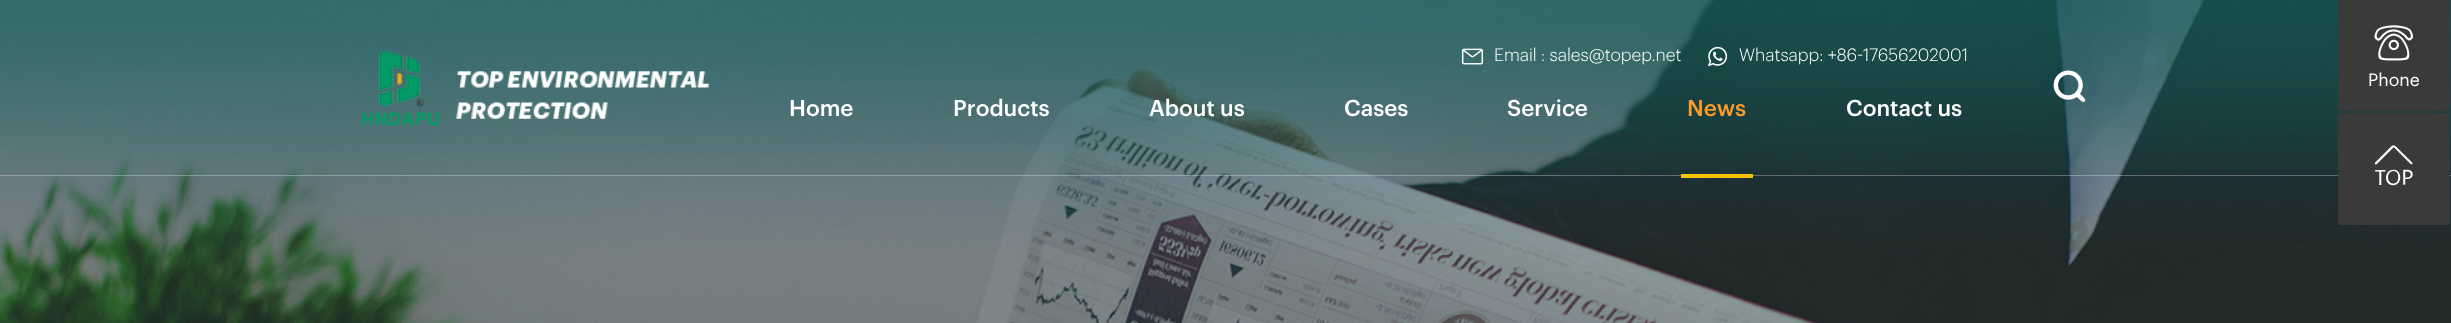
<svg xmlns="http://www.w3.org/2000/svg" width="2451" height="323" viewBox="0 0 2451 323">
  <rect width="100%" height="100%" fill="#ffffff"/>
  <image x="0" y="0" width="2451" height="323" href="img1.png"/>
  <image x="0" y="0" width="2451" height="176" href="img2.png"/>
  <rect x="0" y="175" width="2451" height="1" fill="#ffffff" fill-opacity="0.3"/>
  <image x="362" y="51" width="347" height="75" href="img3.png"/>
  <image x="1461" y="48" width="23" height="17" href="img4.png"/>
  <text x="1494" y="61" font-family="Graphik" font-size="17.5" font-weight="300" fill="#ffffff">Email : sales@topep.net</text>
  <image x="1707" y="46" width="21" height="21" href="img5.png"/>
  <text x="1739" y="61" font-family="Graphik" font-size="17.5" font-weight="300" fill="#ffffff">Whatsapp: +86-17656202001</text>
  <text x="789" y="116" font-family="Graphik" font-size="22.5" font-weight="500" fill="#ffffff">Home</text>
  <text x="953" y="116" font-family="Graphik" font-size="22.5" font-weight="500" fill="#ffffff">Products</text>
  <text x="1149" y="116" font-family="Graphik" font-size="22.5" font-weight="500" fill="#ffffff">About us</text>
  <text x="1344" y="116" font-family="Graphik" font-size="22.5" font-weight="500" fill="#ffffff">Cases</text>
  <text x="1507" y="116" font-family="Graphik" font-size="22.5" font-weight="500" fill="#ffffff">Service</text>
  <text x="1687" y="116" font-family="Graphik" font-size="22.5" font-weight="500" fill="#fc9b28">News</text>
  <rect x="1681" y="174" width="72" height="4" fill="#f8c301"/>
  <text x="1846" y="116" font-family="Graphik" font-size="22.5" font-weight="500" fill="#ffffff">Contact us</text>
  <image x="2053" y="70" width="33" height="32" href="img6.png"/>
  <rect x="2338" y="-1" width="112" height="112" rx="2.5" fill="#3a3a3a"/>
  <image x="2374" y="25" width="39" height="36" href="img7.png"/>
  <text x="2368" y="86" font-family="Graphik" font-size="17.5" fill="#ffffff">Phone</text>
  <rect x="2338" y="113" width="112" height="112" rx="2.5" fill="#3a3a3a"/>
  <image x="2374" y="145" width="39" height="41" href="img8.png"/>
</svg>
